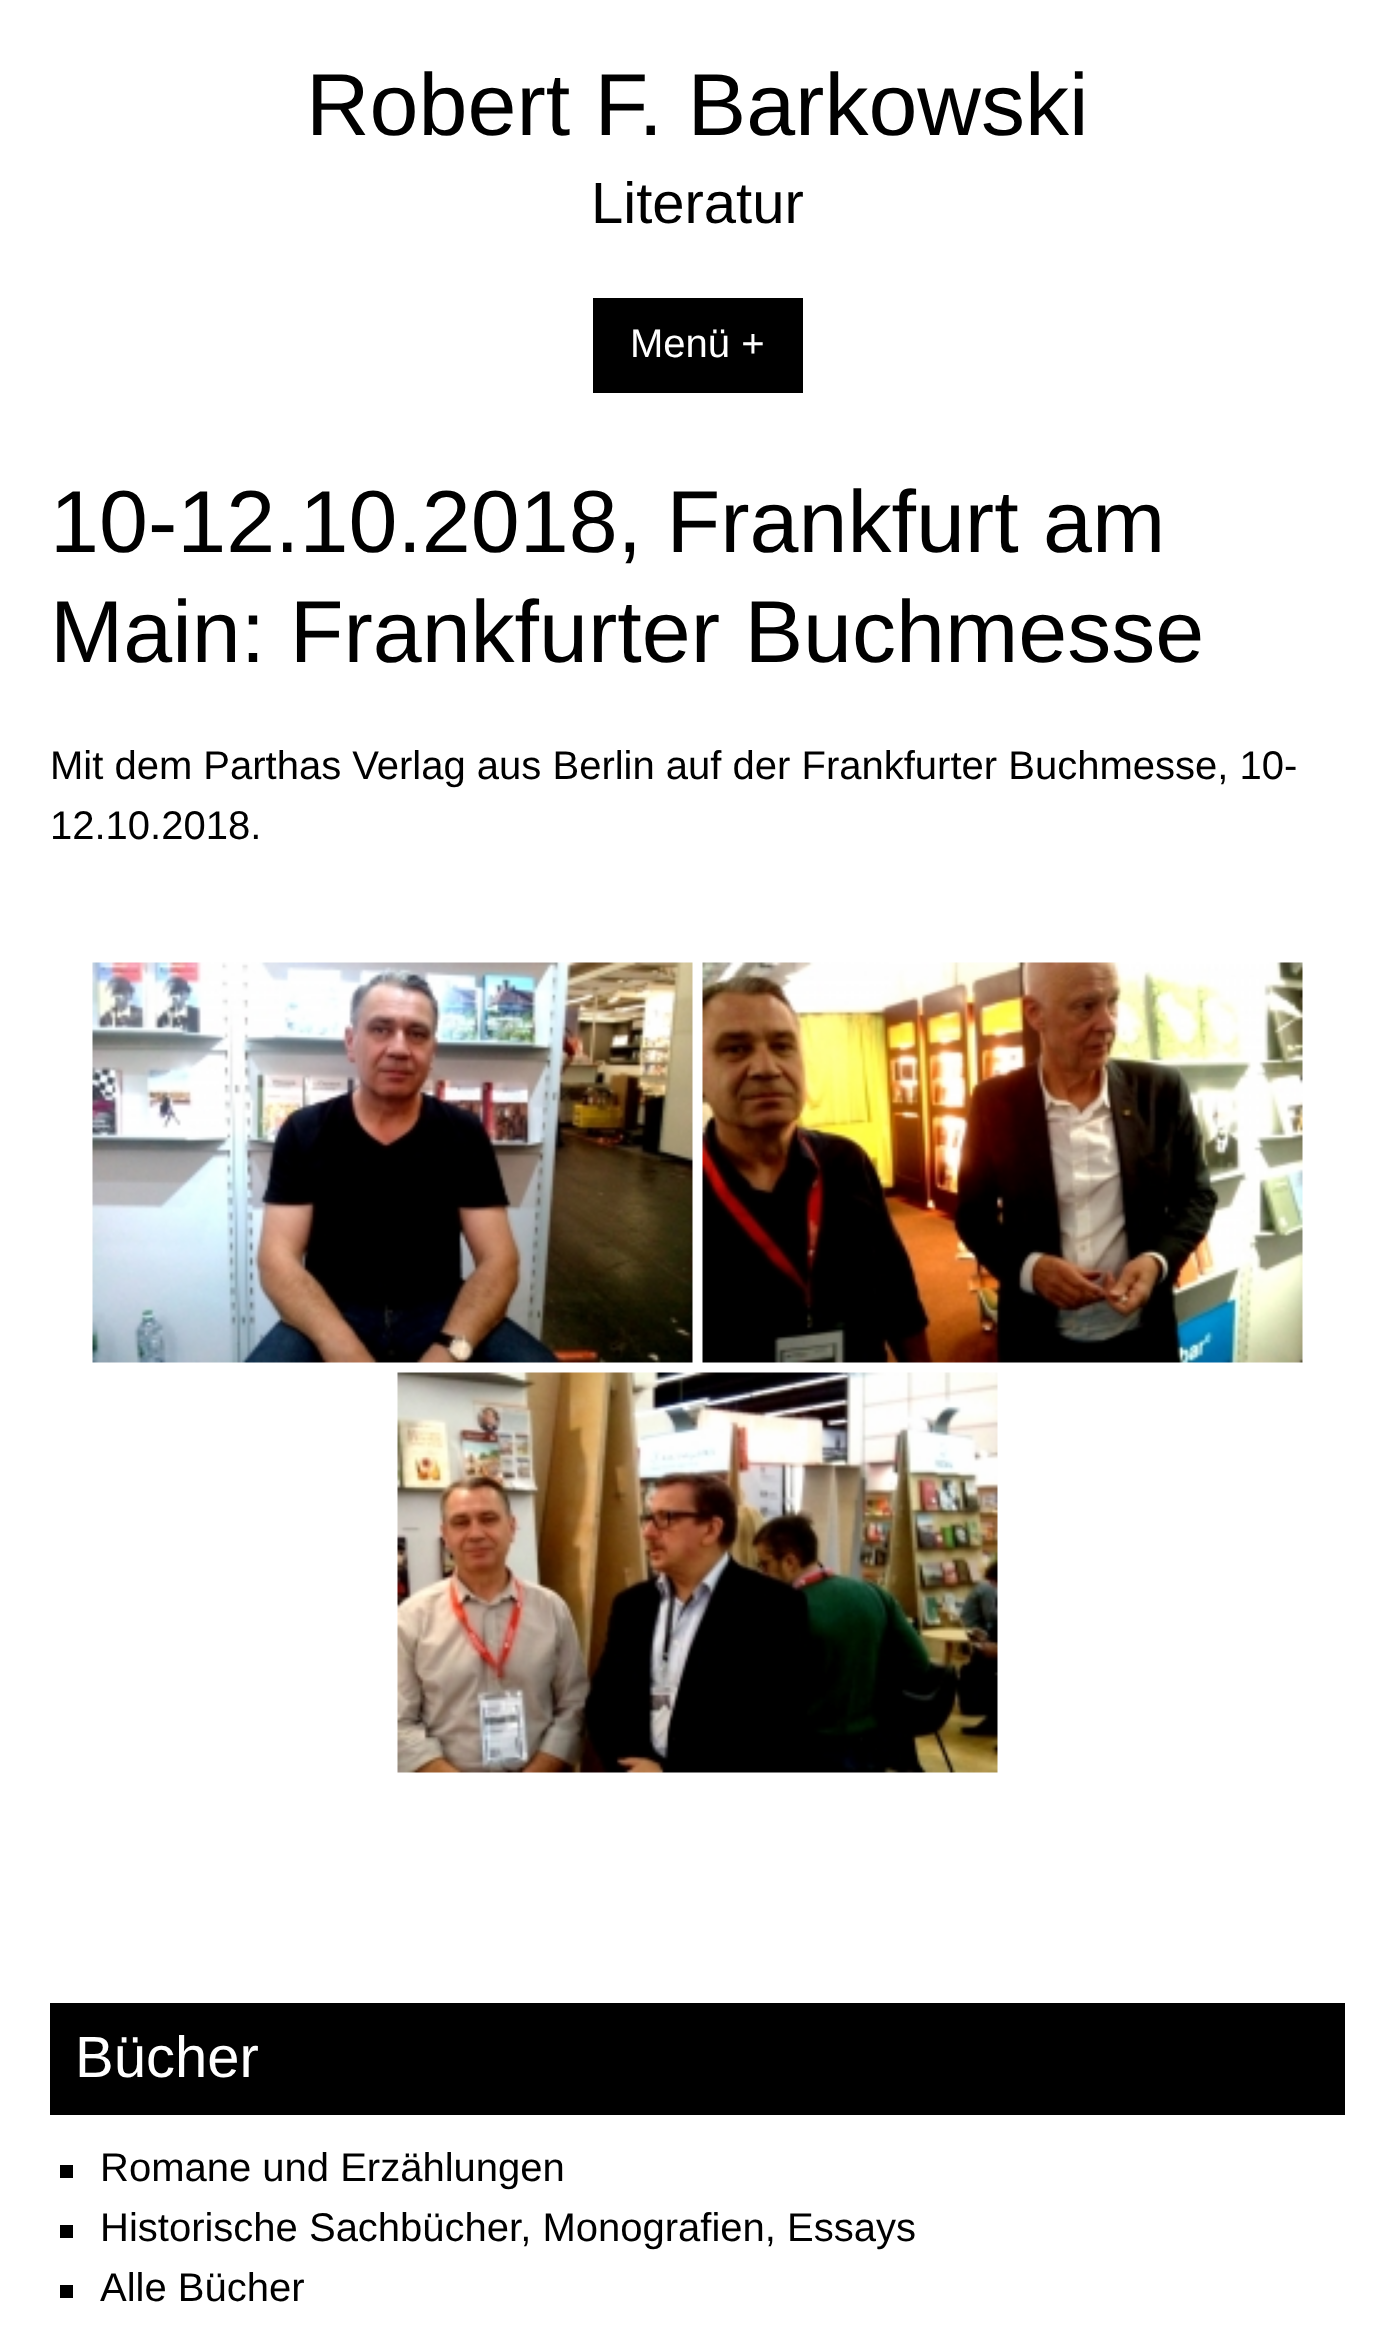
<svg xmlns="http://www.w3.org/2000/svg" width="1393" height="2346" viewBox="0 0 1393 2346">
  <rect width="100%" height="100%" fill="#ffffff"/>
  <text x="306" y="135" font-family="Liberation Sans" font-size="88" fill="#000000">Robert F. Barkowski</text>
  <text x="591" y="223" font-family="Liberation Sans" font-size="58" fill="#000000">Literatur</text>
  <rect x="593" y="298" width="210" height="95" fill="#000000"/>
  <text x="630" y="357" font-family="Liberation Sans" font-size="40" fill="#ffffff">Menü +</text>
  <text x="50" y="552" font-family="Liberation Sans" font-size="88" fill="#000000">10-12.10.2018, Frankfurt am</text>
  <text x="50" y="662" font-family="Liberation Sans" font-size="88" fill="#000000">Main: Frankfurter Buchmesse</text>
  <text x="50" y="779" font-family="Liberation Sans" font-size="40" fill="#000000">Mit dem Parthas Verlag aus Berlin auf der Frankfurter Buchmesse, 10-</text>
  <text x="50" y="839" font-family="Liberation Sans" font-size="40" fill="#000000">12.10.2018.</text>
  <image x="92" y="962" width="601" height="401" href="img1.png"/>
  <image x="702" y="962" width="601" height="401" href="img2.png"/>
  <image x="397" y="1372" width="601" height="401" href="img3.png"/>
  <rect x="50" y="2003" width="1295" height="112" fill="#000000"/>
  <text x="75" y="2077" font-family="Liberation Sans" font-size="58" fill="#ffffff">Bücher</text>
  <rect x="60" y="2165" width="13" height="13" fill="#000000"/>
  <text x="100" y="2181" font-family="Liberation Sans" font-size="40" fill="#000000">Romane und Erzählungen</text>
  <rect x="60" y="2225" width="13" height="13" fill="#000000"/>
  <text x="100" y="2241" font-family="Liberation Sans" font-size="40" fill="#000000">Historische Sachbücher, Monografien, Essays</text>
  <rect x="60" y="2285" width="13" height="13" fill="#000000"/>
  <text x="100" y="2301" font-family="Liberation Sans" font-size="40" fill="#000000">Alle Bücher</text>
</svg>
